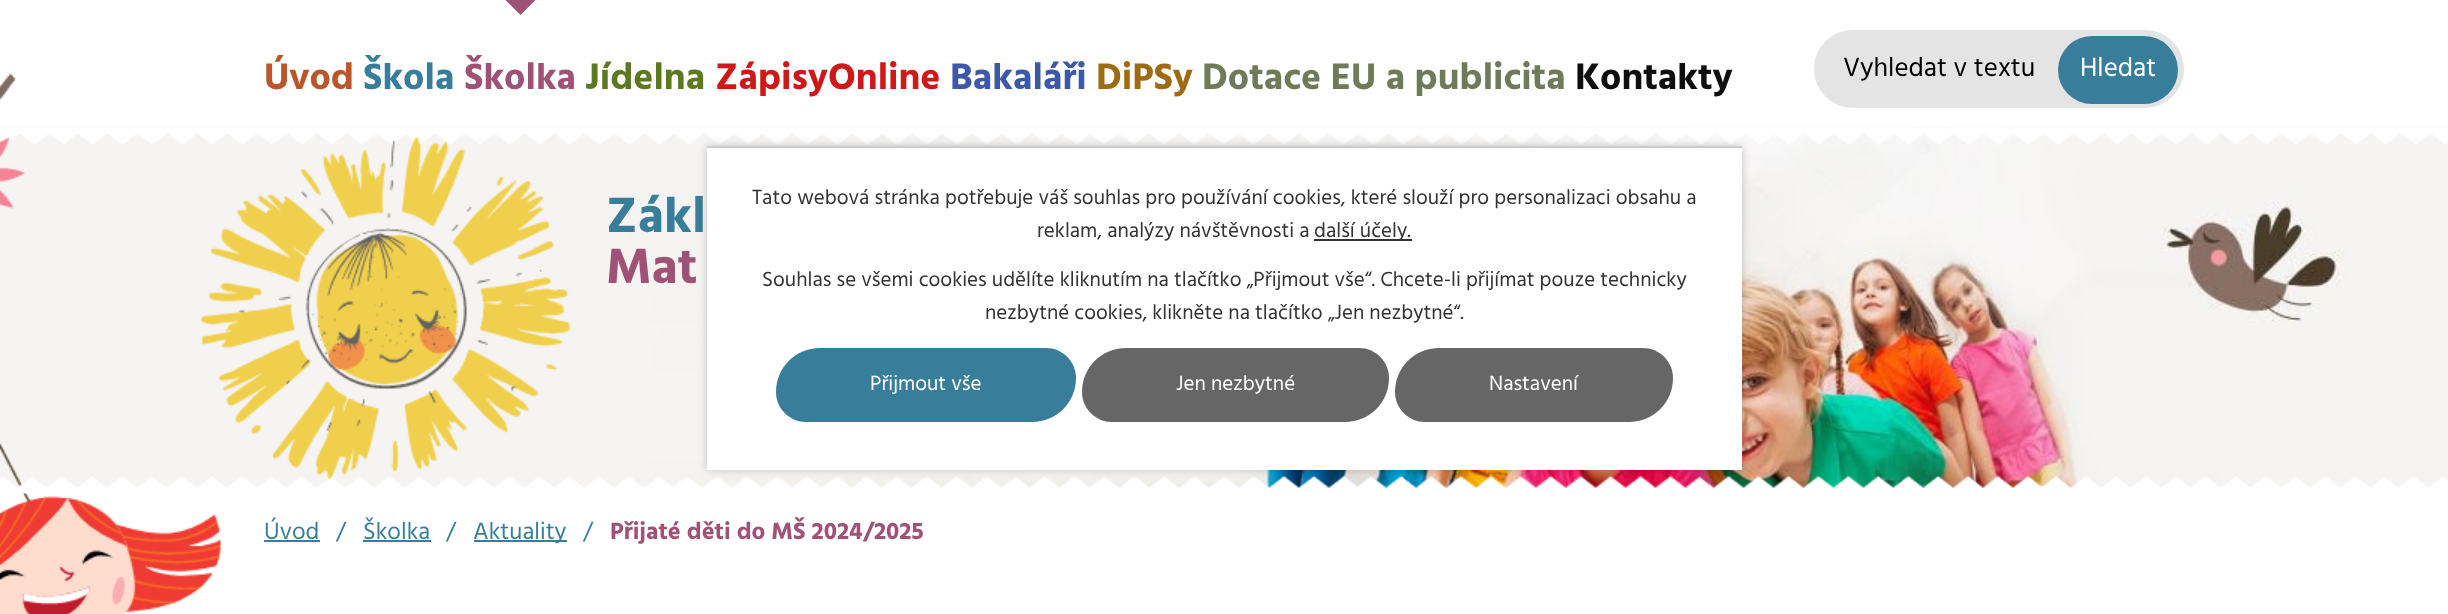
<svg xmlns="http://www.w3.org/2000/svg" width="2448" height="614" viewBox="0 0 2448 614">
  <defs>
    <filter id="blur1" x="-50%" y="-200%" width="200%" height="500%"><feGaussianBlur stdDeviation="4"/></filter>
  </defs>
  <rect width="100%" height="100%" fill="#ffffff"/>
  <text x="264" y="89" font-family="Hind" font-size="37.75" font-weight="bold" fill="#ba5629">Úvod</text>
  <text x="363" y="89" font-family="Hind" font-size="37.75" font-weight="bold" fill="#387e9a">Škola</text>
  <path d="M505.5 0H535.5L520.5 15Z" fill="#9f5275"/>
  <text x="464" y="89" font-family="Hind" font-size="37.75" font-weight="bold" fill="#9f5275">Školka</text>
  <text x="585" y="89" font-family="Hind" font-size="37.75" font-weight="bold" fill="#5d791f">Jídelna</text>
  <text x="715" y="89" font-family="Hind" font-size="37.75" font-weight="bold" fill="#cf1818">ZápisyOnline</text>
  <text x="950" y="89" font-family="Hind" font-size="37.75" font-weight="bold" fill="#3c58a6">Bakaláři</text>
  <text x="1096" y="89" font-family="Hind" font-size="37.75" font-weight="bold" fill="#9e6a14">DiPSy</text>
  <text x="1202" y="89" font-family="Hind" font-size="37.75" font-weight="bold" fill="#6f7a58">Dotace EU a publicita</text>
  <text x="1575" y="89" font-family="Hind" font-size="37.75" font-weight="bold" fill="#0e0e0e">Kontakty</text>
  <rect x="1815" y="31" width="368" height="76" rx="38" fill="#e4e4e4" stroke="#e4e4e4" stroke-width="2"/>
  <text x="1843" y="76" font-family="Hind" font-size="27" fill="#000000">Vyhledat v textu</text>
  <rect x="2058" y="36" width="120" height="68" rx="34" fill="#387e9a"/>
  <text x="2080" y="76" font-family="Hind" font-size="27" fill="#ffffff">Hledat</text>
  <image x="0" y="127" width="2448" height="363" href="img1.png"/>
  <image x="0" y="128" width="2448" height="17" href="img3.png"/>
  <image x="0" y="73" width="221" height="541" href="img2.png"/>
  <image x="0" y="475" width="2448" height="19" href="img5.png"/>
  <image x="200" y="136" width="371" height="343" href="img4.png"/>
  <text x="606" y="232" font-family="Hind" font-size="51" font-weight="bold" fill="#387e9a">Zákl</text>
  <text x="606" y="283" font-family="Hind" font-size="51" font-weight="bold" fill="#9f5275">Mat</text>
  <text x="264" y="539" font-family="Hind" font-size="24.25" fill="#387e9a">Úvod</text>
  <rect x="264" y="540" width="56" height="2" fill="#387e9a"/>
  <text x="336" y="539" font-family="Hind" font-size="24.25" fill="#387e9a">/</text>
  <text x="363" y="539" font-family="Hind" font-size="24.25" fill="#387e9a">Školka</text>
  <rect x="363" y="540" width="68" height="2" fill="#387e9a"/>
  <text x="446" y="539" font-family="Hind" font-size="24.25" fill="#387e9a">/</text>
  <rect x="474" y="540" width="93" height="2" fill="#387e9a"/>
  <text x="473" y="539" font-family="Hind" font-size="24.25" fill="#387e9a">Aktuality</text>
  <text x="583" y="539" font-family="Hind" font-size="24.25" fill="#387e9a">/</text>
  <text x="610" y="539" font-family="Hind" font-size="24.25" font-weight="bold" fill="#9f5275">Přijaté děti do MŠ 2024/2025</text>
  <rect x="707" y="146" width="1035" height="324" fill="#000000" fill-opacity="0.2" filter="url(#blur1)"/>
  <rect x="707" y="148" width="1035" height="322" fill="#ffffff"/>
  <rect x="707" y="146" width="1035" height="2" fill="#cccccc"/>
  <text x="752" y="204" font-family="Hind" font-size="21" fill="#333333">Tato webová stránka potřebuje váš souhlas pro používání cookies, které slouží pro personalizaci obsahu a</text>
  <text x="1037" y="237" font-family="Hind" font-size="21" fill="#333333">reklam, analýzy návštěvnosti a</text>
  <rect x="1314" y="239" width="98" height="2" fill="#333333"/>
  <text x="1314" y="237" font-family="Hind" font-size="21" fill="#333333">další účely.</text>
  <text x="762" y="286" font-family="Hind" font-size="21" fill="#333333">Souhlas se všemi cookies udělíte kliknutím na tlačítko „Přijmout vše“. Chcete-li přijímat pouze technicky</text>
  <text x="985" y="319" font-family="Hind" font-size="21" fill="#333333">nezbytné cookies, klikněte na tlačítko „Jen nezbytné“.</text>
  <path d="M820 348H1046C1062.5 348 1076 361.5 1076 378C1076 402.5 1056.5 422 1032 422H806C789.5 422 776 408.5 776 392C776 367.5 795.5 348 820 348Z" fill="#387e9a"/>
  <text x="870" y="390" font-family="Hind" font-size="21" fill="#ffffff">Přijmout vše</text>
  <path d="M1126 348H1359C1375.5 348 1389 361.5 1389 378C1389 402.5 1369.5 422 1345 422H1112C1095.5 422 1082 408.5 1082 392C1082 367.5 1101.5 348 1126 348Z" fill="#666666"/>
  <text x="1176" y="390" font-family="Hind" font-size="21" fill="#ffffff">Jen nezbytné</text>
  <path d="M1439 348H1643C1659.5 348 1673 361.5 1673 378C1673 402.5 1653.5 422 1629 422H1425C1408.5 422 1395 408.5 1395 392C1395 367.5 1414.5 348 1439 348Z" fill="#666666"/>
  <text x="1489" y="390" font-family="Hind" font-size="21" fill="#ffffff">Nastavení</text>
</svg>
